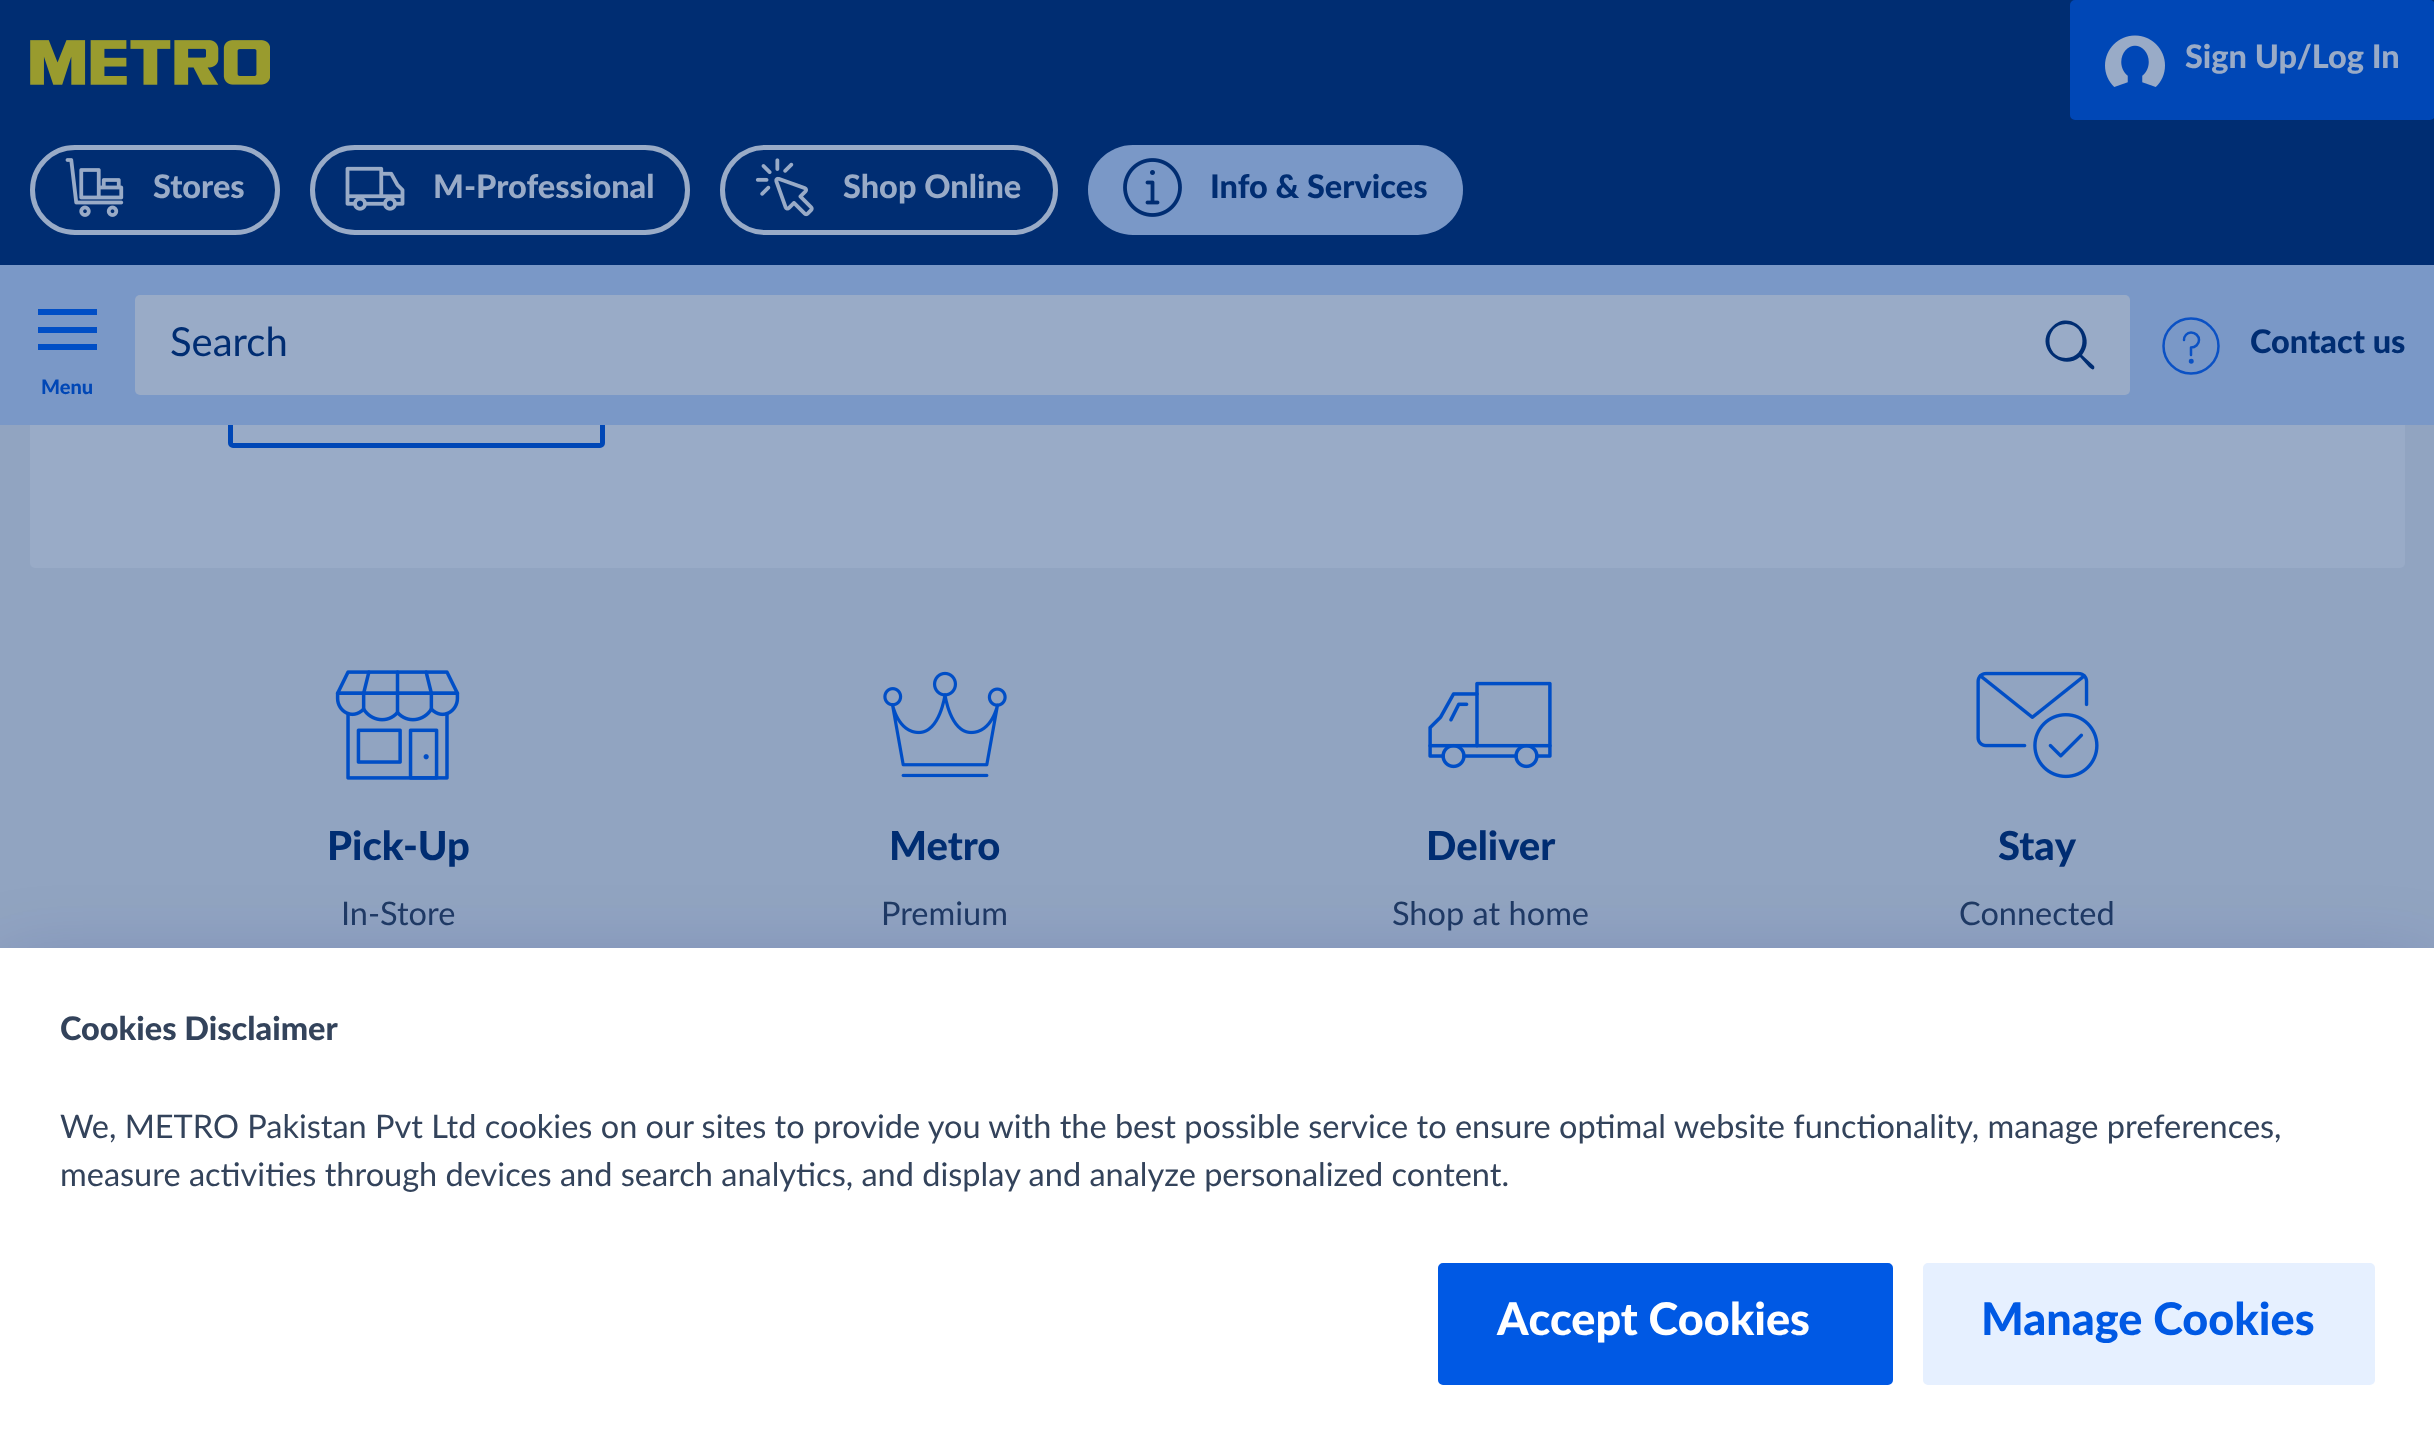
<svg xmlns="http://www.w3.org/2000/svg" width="2434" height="1443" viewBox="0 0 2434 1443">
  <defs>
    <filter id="blur1" x="-50%" y="-200%" width="200%" height="500%"><feGaussianBlur stdDeviation="40"/></filter>
  </defs>
  <rect width="100%" height="100%" fill="#91a4c1"/>
  <rect x="30" y="-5" width="2375" height="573" rx="5" fill="#99abc7"/>
  <rect x="230.5" y="327.5" width="372" height="118" rx="2.5" fill="none" stroke="#0047b6" stroke-width="5"/>
  <rect x="0" y="0" width="2434" height="265" fill="#002d72"/>
  <image x="30" y="40" width="240" height="45" href="img1.png"/>
  <rect x="2072.5" y="2.5" width="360" height="115" rx="2.5" fill="#0047b6" stroke="#0047b6" stroke-width="5"/>
  <image x="2105" y="35" width="60" height="52" href="img2.png"/>
  <text x="2185" y="68" font-family="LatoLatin" font-size="32.5" font-weight="900" fill="#99abc7">Sign Up/Log In</text>
  <rect x="32.5" y="147.5" width="245" height="85" rx="42.5" fill="none" stroke="#99abc7" stroke-width="5"/>
  <image x="65" y="158" width="59" height="59" href="img3.png"/>
  <text x="153" y="198" font-family="LatoLatin" font-size="32.5" font-weight="900" fill="#99abc7">Stores</text>
  <rect x="312.5" y="147.5" width="375" height="85" rx="42.5" fill="none" stroke="#99abc7" stroke-width="5"/>
  <image x="345" y="166" width="60" height="45" href="img4.png"/>
  <text x="433" y="198" font-family="LatoLatin" font-size="32.5" font-weight="900" fill="#99abc7">M-Professional</text>
  <rect x="722.5" y="147.5" width="333" height="85" rx="42.5" fill="none" stroke="#99abc7" stroke-width="5"/>
  <image x="755" y="158" width="59" height="59" href="img5.png"/>
  <text x="843" y="198" font-family="LatoLatin" font-size="32.5" font-weight="900" fill="#99abc7">Shop Online</text>
  <rect x="1088" y="145" width="375" height="90" rx="45" fill="#7a98c7"/>
  <image x="1123" y="158" width="59" height="59" href="img6.png"/>
  <text x="1210" y="198" font-family="LatoLatin" font-size="32.5" font-weight="900" fill="#002d72">Info &amp; Services</text>
  <rect x="0" y="265" width="2434" height="160" fill="#7a98c7"/>
  <rect x="135" y="295" width="1995" height="100" rx="5" fill="#99abc7"/>
  <text x="170" y="356" font-family="LatoLatin" font-size="40" fill="#002d72">Search</text>
  <path d="M2066 358C2044 358 2044 324 2066 324C2088 324 2088 358 2066 358ZM2094 366L2082 355C2098 335 2070 308 2052 327C2033 345 2060 373 2080 357L2089 367C2094 372 2095 368 2094 366Z" fill="#002d72" fill-rule="evenodd"/>
  <circle cx="2191" cy="346" r="27.5" fill="none" stroke="#0b51c4" stroke-width="2.5"/>
  <path d="M2184 340C2184 336 2187 332.5 2191 332.5C2195.5 332.5 2199 336 2199 340C2199 344 2195.5 347.5 2191 347.5V355" fill="none" stroke="#0b51c4" stroke-width="2.5" stroke-linecap="round" stroke-linejoin="round"/>
  <path d="M2192.5 361C2192.5 363 2190 363 2190 361C2190 359.5 2192.5 359.5 2192.5 361Z" fill="none" stroke="#0b51c4" stroke-width="2.5" stroke-linejoin="round"/>
  <text x="2250" y="353" font-family="LatoLatin" font-size="32.5" font-weight="900" fill="#002d72">Contact us</text>
  <path d="M38 309V315H97V309ZM38 327V333H97V327ZM38 344V350H97V344Z" fill="#004ec6"/>
  <text x="41" y="394" font-family="LatoLatin" font-size="20" font-weight="900" fill="#0047b6">Menu</text>
  <image x="335" y="670" width="125" height="110" href="img7.png"/>
  <text x="327" y="860" font-family="LatoLatin" font-size="40" font-weight="900" fill="#002d72">Pick-Up</text>
  <text x="341" y="925" font-family="LatoLatin" font-size="32.5" fill="#1f3a64">In-Store</text>
  <image x="883" y="671" width="124" height="107" href="img8.png"/>
  <text x="889" y="860" font-family="LatoLatin" font-size="40" font-weight="900" fill="#002d72">Metro</text>
  <text x="881" y="925" font-family="LatoLatin" font-size="32.5" fill="#1f3a64">Premium</text>
  <image x="1428" y="681" width="124" height="88" href="img9.png"/>
  <text x="1426" y="860" font-family="LatoLatin" font-size="40" font-weight="900" fill="#002d72">Deliver</text>
  <text x="1392" y="925" font-family="LatoLatin" font-size="32.5" fill="#1f3a64">Shop at home</text>
  <image x="1976" y="671" width="123" height="108" href="img10.png"/>
  <text x="1998" y="860" font-family="LatoLatin" font-size="40" font-weight="900" fill="#002d72">Stay</text>
  <text x="1959" y="925" font-family="LatoLatin" font-size="32.5" fill="#1f3a64">Connected</text>
  <rect x="0" y="968" width="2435" height="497" fill="#002d72" fill-opacity="0.2" filter="url(#blur1)"/>
  <rect x="0" y="948" width="2434" height="495" fill="#ffffff"/>
  <text x="60" y="1040" font-family="LatoLatin" font-size="32.5" font-weight="900" fill="#33435b">Cookies Disclaimer</text>
  <text x="60" y="1138" font-family="LatoLatin" font-size="32.5" fill="#33435b">We, METRO Pakistan Pvt Ltd cookies on our sites to provide you with the best possible service to ensure optimal website functionality, manage preferences,</text>
  <text x="60" y="1186" font-family="LatoLatin" font-size="32.5" fill="#33435b">measure activities through devices and search analytics, and display and analyze personalized content.</text>
  <rect x="1440.5" y="1265.5" width="450" height="117" rx="2.5" fill="#0059e4" stroke="#0059e4" stroke-width="5"/>
  <text x="1497" y="1335" font-family="LatoLatin" font-size="45" font-weight="900" fill="#ffffff">Accept Cookies</text>
  <rect x="1925.5" y="1265.5" width="447" height="117" rx="2.5" fill="#e6f0ff" stroke="#e6f0ff" stroke-width="5"/>
  <text x="1981" y="1335" font-family="LatoLatin" font-size="45" font-weight="900" fill="#0059e4">Manage Cookies</text>
</svg>
